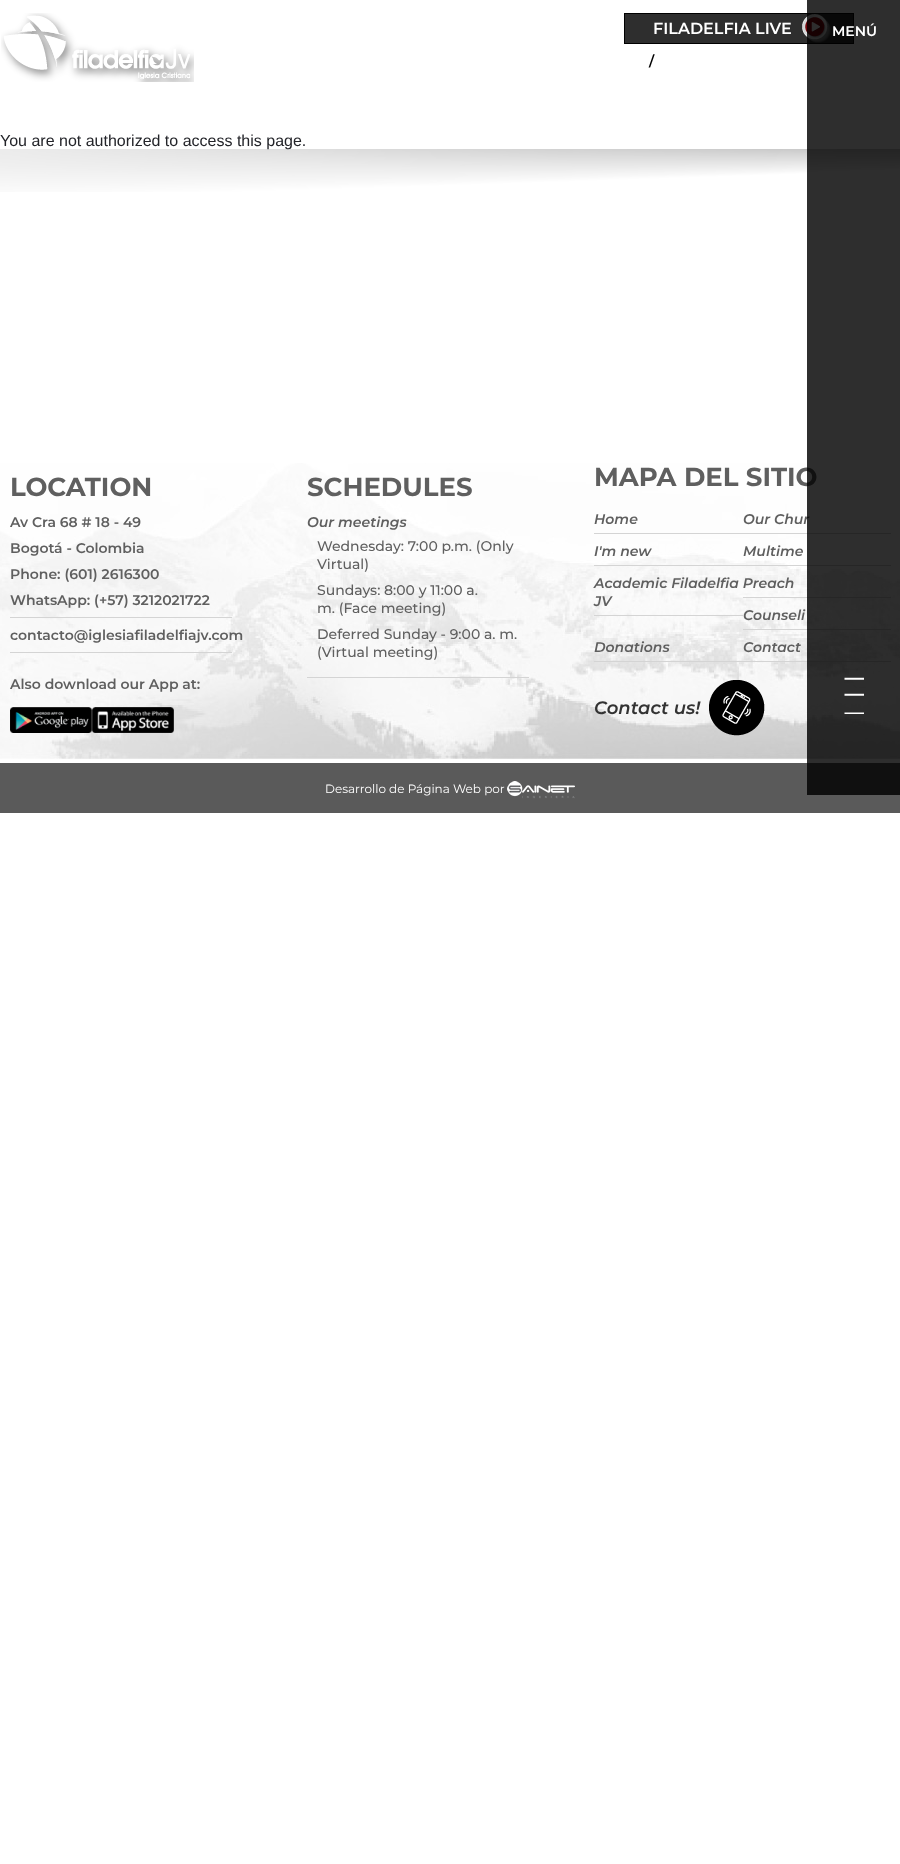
<svg xmlns="http://www.w3.org/2000/svg" width="900" height="1864" viewBox="0 0 900 1864">
  <rect width="100%" height="100%" fill="#ffffff"/>
  <image x="1" y="13" width="193" height="69" href="img1.png"/>
  <rect x="625" y="14" width="228" height="29" fill="#2e2e2e"/>
  <image x="802" y="14" width="29" height="29" href="img2.png"/>
  <rect x="624.5" y="13.5" width="229" height="30" fill="none" stroke="#010101"/>
  <text x="653" y="34" font-family="Montserrat" font-size="16" font-weight="600" fill="#ffffff">FILADELFIA LIVE</text>
  <text x="649" y="66" font-family="Montserrat" font-size="14" font-weight="600" fill="#000000">/</text>
  <text x="0" y="146" font-family="Liberation Sans" font-size="16" fill="#232429">You are not authorized to access this page.</text>
  <image x="0" y="149" width="900" height="43" href="img4.png"/>
  <image x="0" y="463" width="900" height="296" href="img5.png"/>
  <text x="594" y="486" font-family="Montserrat" font-size="26" font-weight="bold" fill="#5f5f5f">MAPA DEL SITIO</text>
  <rect x="594" y="533" width="297" height="1" fill="#d4d4d4"/>
  <text x="743" y="524" font-family="Montserrat" font-size="14" font-weight="600" font-style="italic" fill="#5f5f5f">Our Chur</text>
  <rect x="594" y="565" width="297" height="1" fill="#d4d4d4"/>
  <rect x="743" y="597" width="148" height="1" fill="#d4d4d4"/>
  <rect x="743" y="629" width="148" height="1" fill="#d4d4d4"/>
  <rect x="594" y="661" width="297" height="1" fill="#d4d4d4"/>
  <rect x="0" y="763" width="900" height="50" fill="#5a5a5a"/>
  <rect x="807" y="0" width="93" height="795" fill="#000000" fill-opacity="0.82"/>
  <text x="832" y="36" font-family="Montserrat" font-size="14" font-weight="600" fill="#ffffff">MENÚ</text>
  <image x="844" y="677" width="20" height="37" href="img3.png"/>
  <text x="10" y="496" font-family="Montserrat" font-size="26" font-weight="bold" fill="#5f5f5f">LOCATION</text>
  <rect x="10" y="617" width="222" height="1" fill="#d4d4d4"/>
  <text x="10" y="527" font-family="Montserrat" font-size="14" font-weight="600" fill="#5f5f5f">Av Cra 68 # 18 - 49</text>
  <text x="10" y="553" font-family="Montserrat" font-size="14" font-weight="600" fill="#5f5f5f">Bogotá - Colombia</text>
  <text x="10" y="579" font-family="Montserrat" font-size="14" font-weight="600" fill="#5f5f5f">Phone: (601) 2616300</text>
  <text x="10" y="605" font-family="Montserrat" font-size="14" font-weight="600" fill="#5f5f5f">WhatsApp: (+57) 3212021722</text>
  <rect x="10" y="652" width="222" height="1" fill="#d4d4d4"/>
  <text x="10" y="640" font-family="Montserrat" font-size="14" font-weight="600" fill="#5f5f5f">contacto@iglesiafiladelfiajv.com</text>
  <text x="10" y="689" font-family="Montserrat" font-size="14" font-weight="600" fill="#5f5f5f">Also download our App at:</text>
  <image x="10" y="707" width="82" height="26" href="img6.png"/>
  <image x="92" y="707" width="82" height="26" href="img7.png"/>
  <text x="307" y="496" font-family="Montserrat" font-size="26" font-weight="bold" fill="#5f5f5f">SCHEDULES</text>
  <rect x="307" y="677" width="222" height="1" fill="#d4d4d4"/>
  <text x="307" y="527" font-family="Montserrat" font-size="14" font-weight="600" font-style="italic" fill="#5f5f5f">Our meetings</text>
  <text x="317" y="551" font-family="Montserrat" font-size="14" font-weight="500" fill="#5f5f5f">Wednesday: 7:00 p.m. (Only</text>
  <text x="317" y="569" font-family="Montserrat" font-size="14" font-weight="500" fill="#5f5f5f">Virtual)</text>
  <text x="317" y="595" font-family="Montserrat" font-size="14" font-weight="500" fill="#5f5f5f">Sundays: 8:00 y 11:00 a.</text>
  <text x="317" y="613" font-family="Montserrat" font-size="14" font-weight="500" fill="#5f5f5f">m. (Face meeting)</text>
  <text x="317" y="639" font-family="Montserrat" font-size="14" font-weight="500" fill="#5f5f5f">Deferred Sunday - 9:00 a. m.</text>
  <text x="317" y="657" font-family="Montserrat" font-size="14" font-weight="500" fill="#5f5f5f">(Virtual meeting)</text>
  <text x="594" y="524" font-family="Montserrat" font-size="14" font-weight="600" font-style="italic" fill="#5f5f5f">Home</text>
  <text x="594" y="556" font-family="Montserrat" font-size="14" font-weight="600" font-style="italic" fill="#5f5f5f">I'm new</text>
  <text x="743" y="556" font-family="Montserrat" font-size="14" font-weight="600" font-style="italic" fill="#5f5f5f">Multime</text>
  <rect x="594" y="615" width="149" height="1" fill="#d4d4d4"/>
  <text x="594" y="588" font-family="Montserrat" font-size="14" font-weight="600" font-style="italic" fill="#5f5f5f">Academic Filadelfia Preach</text>
  <text x="594" y="606" font-family="Montserrat" font-size="14" font-weight="600" font-style="italic" fill="#5f5f5f">JV</text>
  <text x="743" y="620" font-family="Montserrat" font-size="14" font-weight="600" font-style="italic" fill="#5f5f5f">Counseli</text>
  <text x="594" y="652" font-family="Montserrat" font-size="14" font-weight="600" font-style="italic" fill="#5f5f5f">Donations</text>
  <text x="743" y="652" font-family="Montserrat" font-size="14" font-weight="600" font-style="italic" fill="#5f5f5f">Contact</text>
  <image x="709" y="680" width="56" height="56" href="img8.png"/>
  <text x="594" y="714" font-family="Montserrat" font-size="18" font-weight="600" font-style="italic" fill="#333333">Contact us!</text>
  <text x="325" y="793" font-family="Montserrat" font-size="12" fill="#ffffff">Desarrollo de Página Web por</text>
  <image x="507" y="781" width="68" height="18" href="img9.png"/>
</svg>
